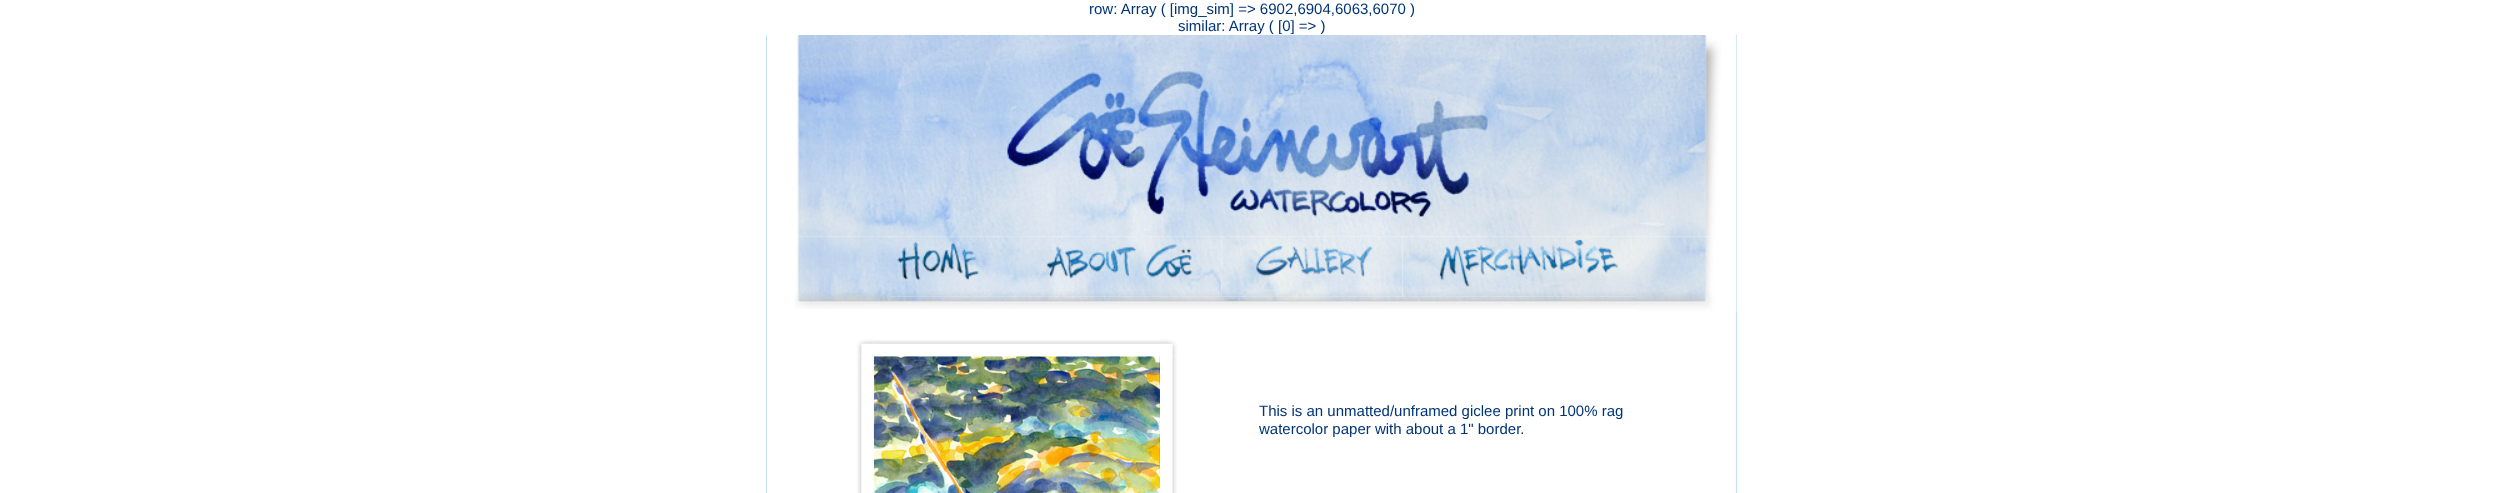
<svg xmlns="http://www.w3.org/2000/svg" width="2503" height="493" viewBox="0 0 2503 493">
  <rect width="100%" height="100%" fill="#ffffff"/>
  <text x="1089" y="14" font-family="Liberation Sans" font-size="15" fill="#003477">row: Array ( [img_sim] =&gt; 6902,6904,6063,6070 )</text>
  <text x="1178" y="31" font-family="Liberation Sans" font-size="15" fill="#003477">similar: Array ( [0] =&gt; )</text>
  <rect x="1736" y="35" width="1" height="458" fill="#c3e2ef"/>
  <rect x="766" y="35" width="1" height="458" fill="#c3e2ef"/>
  <image x="797" y="35" width="940" height="202" href="img1.png"/>
  <image x="794" y="236" width="96" height="73" href="img2.png"/>
  <image x="890" y="236" width="130" height="61" href="img3.png"/>
  <image x="1020" y="236" width="202" height="61" href="img4.png"/>
  <image x="1221" y="236" width="182" height="61" href="img5.png"/>
  <image x="1402" y="236" width="233" height="61" href="img6.png"/>
  <image x="1635" y="236" width="102" height="77" href="img7.png"/>
  <image x="890" y="296" width="745" height="13" href="img8.png"/>
  <image x="873" y="356" width="287" height="137" href="img13.png"/>
  <image x="857" y="339" width="17" height="18" href="img9.png"/>
  <image x="874" y="340" width="286" height="17" href="img10.png"/>
  <image x="1160" y="339" width="17" height="18" href="img11.png"/>
  <image x="857" y="356" width="17" height="137" href="img12.png"/>
  <image x="1172" y="356" width="5" height="137" href="img14.png"/>
  <text x="1259" y="416" font-family="Liberation Sans" font-size="15" fill="#003477">This is an unmatted/unframed giclee print on 100% rag</text>
  <text x="1259" y="434" font-family="Liberation Sans" font-size="15" fill="#003477">watercolor paper with about a 1" border.</text>
</svg>
